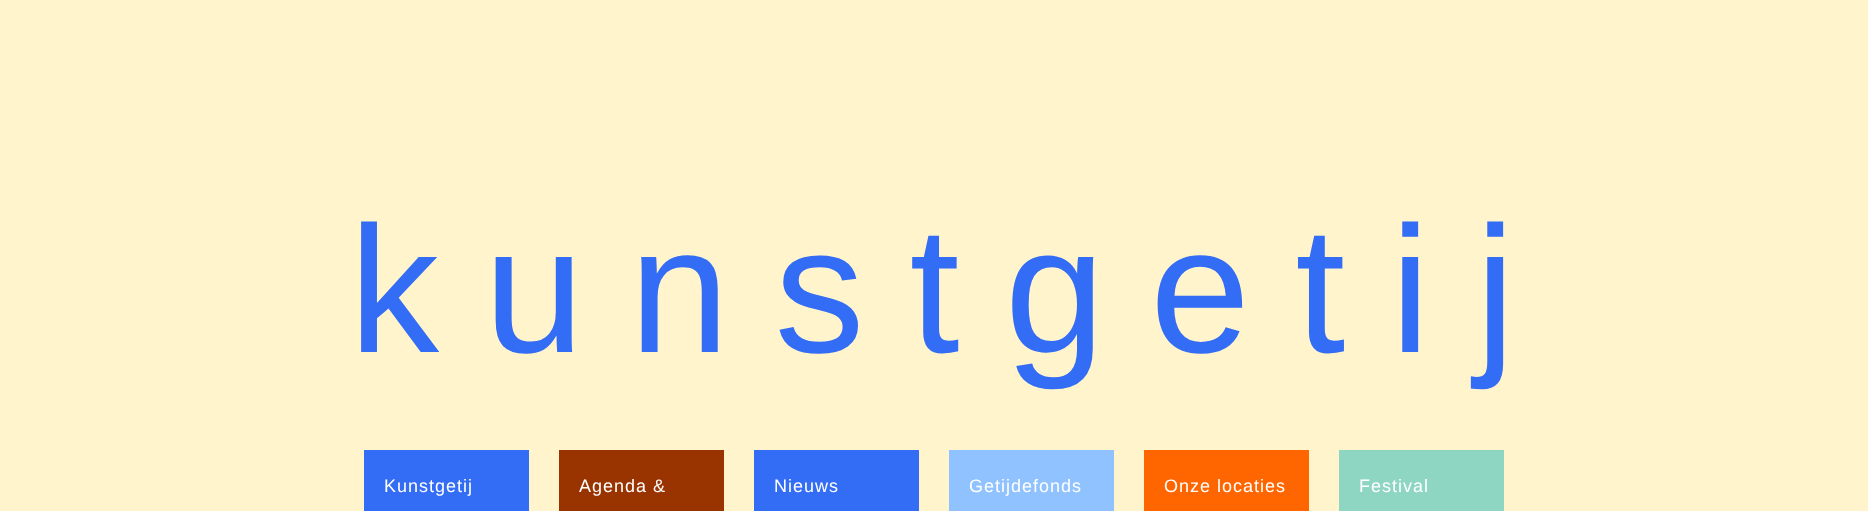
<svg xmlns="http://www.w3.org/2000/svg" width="1868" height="511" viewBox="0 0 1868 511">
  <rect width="100%" height="100%" fill="#fff4cc"/>
  <text x="349" y="352" font-family="Liberation Sans" font-size="180" letter-spacing="45.1" fill="#336cf5">kunstgetij</text>
  <rect x="364" y="450" width="165" height="61" fill="#336cf5"/>
  <text x="384" y="492" font-family="Liberation Sans" font-size="18" letter-spacing="1" fill="#ffffff">Kunstgetij</text>
  <rect x="559" y="450" width="165" height="61" fill="#993300"/>
  <text x="579" y="492" font-family="Liberation Sans" font-size="18" letter-spacing="1" fill="#ffffff">Agenda &amp;</text>
  <rect x="754" y="450" width="165" height="61" fill="#336cf5"/>
  <text x="774" y="492" font-family="Liberation Sans" font-size="18" letter-spacing="1" fill="#ffffff">Nieuws</text>
  <rect x="949" y="450" width="165" height="61" fill="#8fc2ff"/>
  <text x="969" y="492" font-family="Liberation Sans" font-size="18" letter-spacing="1" fill="#ffffff">Getijdefonds</text>
  <rect x="1144" y="450" width="165" height="61" fill="#ff6600"/>
  <text x="1164" y="492" font-family="Liberation Sans" font-size="18" letter-spacing="1" fill="#ffffff">Onze locaties</text>
  <rect x="1339" y="450" width="165" height="61" fill="#8fd6c2"/>
  <text x="1359" y="492" font-family="Liberation Sans" font-size="18" letter-spacing="1" fill="#ffffff">Festival</text>
</svg>
